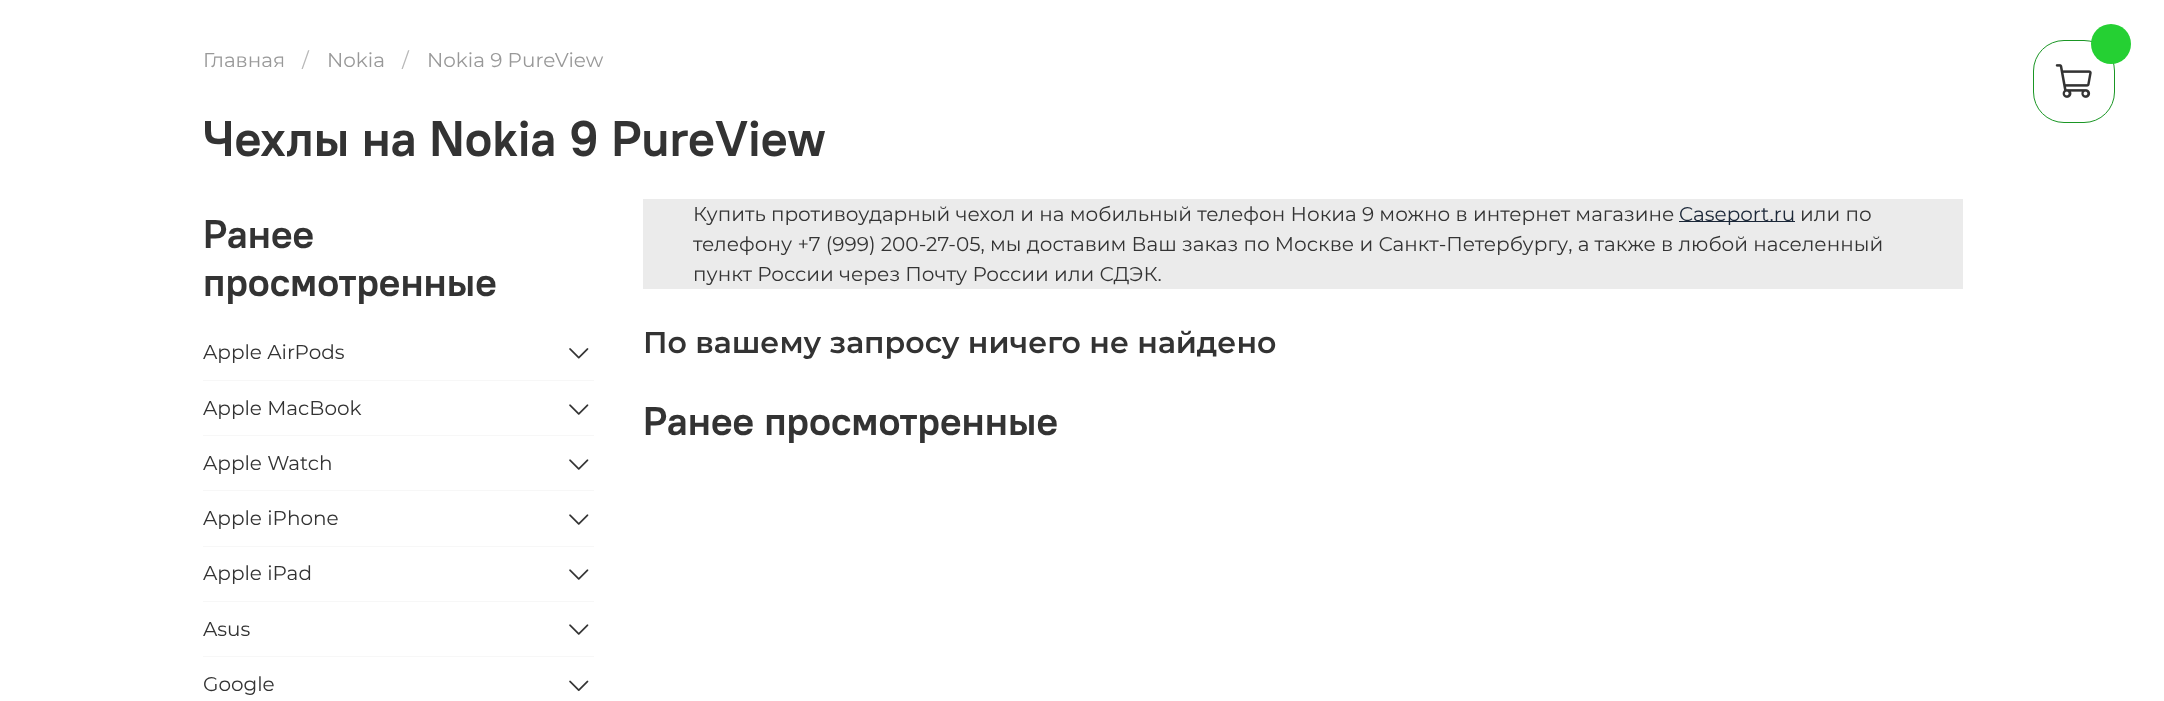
<svg xmlns="http://www.w3.org/2000/svg" width="2164" height="701" viewBox="0 0 2164 701">
  <rect width="100%" height="100%" fill="#ffffff"/>
  <text x="203" y="67" font-family="Montserrat" font-size="20" fill="#999999">Главная</text>
  <text x="302" y="67" font-family="Montserrat" font-size="20" fill="#b8b8b8">/</text>
  <text x="327" y="67" font-family="Montserrat" font-size="20" fill="#999999">Nokia</text>
  <text x="402" y="67" font-family="Montserrat" font-size="20" fill="#b8b8b8">/</text>
  <text x="427" y="67" font-family="Montserrat" font-size="20" fill="#999999">Nokia 9 PureView</text>
  <text x="203" y="156" font-family="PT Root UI" font-size="50" font-weight="bold" fill="#333333">Чехлы на Nokia 9 PureView</text>
  <text x="203" y="248" font-family="PT Root UI" font-size="40" font-weight="bold" fill="#333333">Ранее</text>
  <text x="203" y="296" font-family="PT Root UI" font-size="40" font-weight="bold" fill="#333333">просмотренные</text>
  <rect x="203" y="380" width="391" height="1" fill="#f7f7f7"/>
  <text x="203" y="359" font-family="Montserrat" font-size="20" fill="#333333">Apple AirPods</text>
  <image x="569" y="348" width="20" height="11" href="img1.png"/>
  <rect x="203" y="435" width="391" height="1" fill="#f7f7f7"/>
  <text x="203" y="415" font-family="Montserrat" font-size="20" fill="#333333">Apple MacBook</text>
  <image x="569" y="404" width="20" height="11" href="img2.png"/>
  <rect x="203" y="490" width="391" height="1" fill="#f7f7f7"/>
  <text x="203" y="470" font-family="Montserrat" font-size="20" fill="#333333">Apple Watch</text>
  <image x="569" y="459" width="20" height="11" href="img2.png"/>
  <rect x="203" y="546" width="391" height="1" fill="#f7f7f7"/>
  <text x="203" y="525" font-family="Montserrat" font-size="20" fill="#333333">Apple iPhone</text>
  <image x="569" y="514" width="20" height="11" href="img2.png"/>
  <rect x="203" y="601" width="391" height="1" fill="#f7f7f7"/>
  <text x="203" y="580" font-family="Montserrat" font-size="20" fill="#333333">Apple iPad</text>
  <image x="569" y="569" width="20" height="11" href="img2.png"/>
  <rect x="203" y="656" width="391" height="1" fill="#f7f7f7"/>
  <text x="203" y="636" font-family="Montserrat" font-size="20" fill="#333333">Asus</text>
  <image x="569" y="624" width="20" height="11" href="img2.png"/>
  <text x="203" y="691" font-family="Montserrat" font-size="20" fill="#333333">Google</text>
  <image x="569" y="680" width="20" height="12" href="img3.png"/>
  <rect x="643" y="199" width="1320" height="90" fill="#ebebeb"/>
  <text x="693" y="221" font-family="Montserrat" font-size="20" fill="#333333">Купить противоударный чехол и на мобильный телефон Нокиа 9 можно в интернет магазине</text>
  <rect x="1679" y="221" width="116" height="1" fill="#1b2738"/>
  <text x="1679" y="221" font-family="Montserrat" font-size="20" fill="#1b2738">Caseport.ru</text>
  <text x="1800" y="221" font-family="Montserrat" font-size="20" fill="#333333">или по</text>
  <text x="693" y="251" font-family="Montserrat" font-size="20" fill="#333333">телефону +7 (999) 200-27-05, мы доставим Ваш заказ по Москве и Санкт-Петербургу, а также в любой населенный</text>
  <text x="693" y="281" font-family="Montserrat" font-size="20" fill="#333333">пункт России через Почту России или СДЭК.</text>
  <text x="643" y="353" font-family="Montserrat" font-size="30" font-weight="600" fill="#333333">По вашему запросу ничего не найдено</text>
  <text x="643" y="435" font-family="PT Root UI" font-size="40" font-weight="bold" fill="#333333">Ранее просмотренные</text>
  <rect x="2033.5" y="40.5" width="81" height="82" rx="30.5" fill="none" stroke="#1a9624"/>
  <circle cx="2111" cy="44" r="20" fill="#25d033"/>
  <image x="2055" y="64" width="37" height="34" href="img4.png"/>
</svg>
